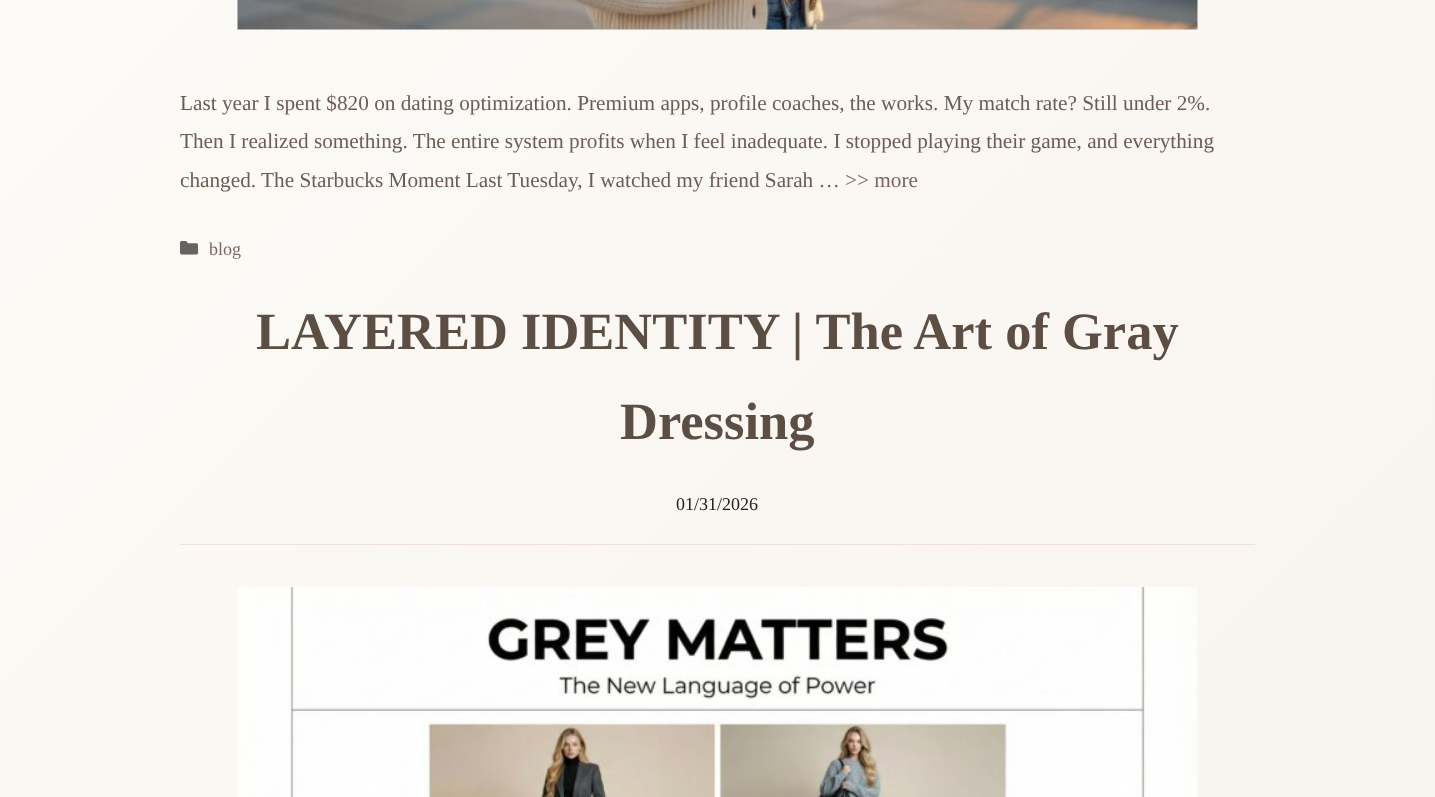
<svg xmlns="http://www.w3.org/2000/svg" width="1435" height="797" viewBox="0 0 1435 797">
  <defs>
    <linearGradient id="g1" gradientUnits="userSpaceOnUse" x1="159" y1="-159" x2="1276" y2="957"><stop offset="0" stop-color="#fdfbf7"/><stop offset="1" stop-color="#f8f4ef"/></linearGradient>
    <linearGradient id="g2" gradientUnits="userSpaceOnUse" x1="159" y1="-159" x2="1276" y2="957"><stop offset="0" stop-color="#efe4dd"/><stop offset="1" stop-color="#ebdfd7"/></linearGradient>
  </defs>
  <rect width="100%" height="100%" fill="#ffffff"/>
  <rect x="0" y="0" width="1435" height="797" fill="url(#g1)"/>
  <rect x="180" y="544" width="1075" height="1" fill="url(#g2)"/>
  <image x="237" y="0" width="961" height="30" href="img1.png"/>
  <text x="180" y="110" font-family="Liberation Serif" font-size="21.25" fill="#6b5d54">Last year I spent $820 on dating optimization. Premium apps, profile coaches, the works. My match rate? Still under 2%.</text>
  <text x="180" y="148" font-family="Liberation Serif" font-size="21.25" fill="#6b5d54">Then I realized something. The entire system profits when I feel inadequate. I stopped playing their game, and everything</text>
  <text x="180" y="187" font-family="Liberation Serif" font-size="21.25" fill="#6b5d54">changed. The Starbucks Moment Last Tuesday, I watched my friend Sarah …</text>
  <text x="845" y="187" font-family="Liberation Serif" font-size="21.25" fill="#79665e">&gt;&gt; more</text>
  <image x="180" y="241" width="18" height="14" href="img2.png"/>
  <text x="209" y="255" font-family="Liberation Serif" font-size="18" fill="#79665e">blog</text>
  <text x="256" y="349" font-family="Liberation Serif" font-size="52.5" font-weight="bold" fill="#5d4e43">LAYERED IDENTITY | The Art of Gray</text>
  <text x="620" y="439" font-family="Liberation Serif" font-size="52.5" font-weight="bold" fill="#5d4e43">Dressing</text>
  <text x="676" y="510" font-family="Liberation Serif" font-size="18" fill="#222222">01/31/2026</text>
  <image x="237" y="587" width="961" height="210" href="img3.png"/>
</svg>
